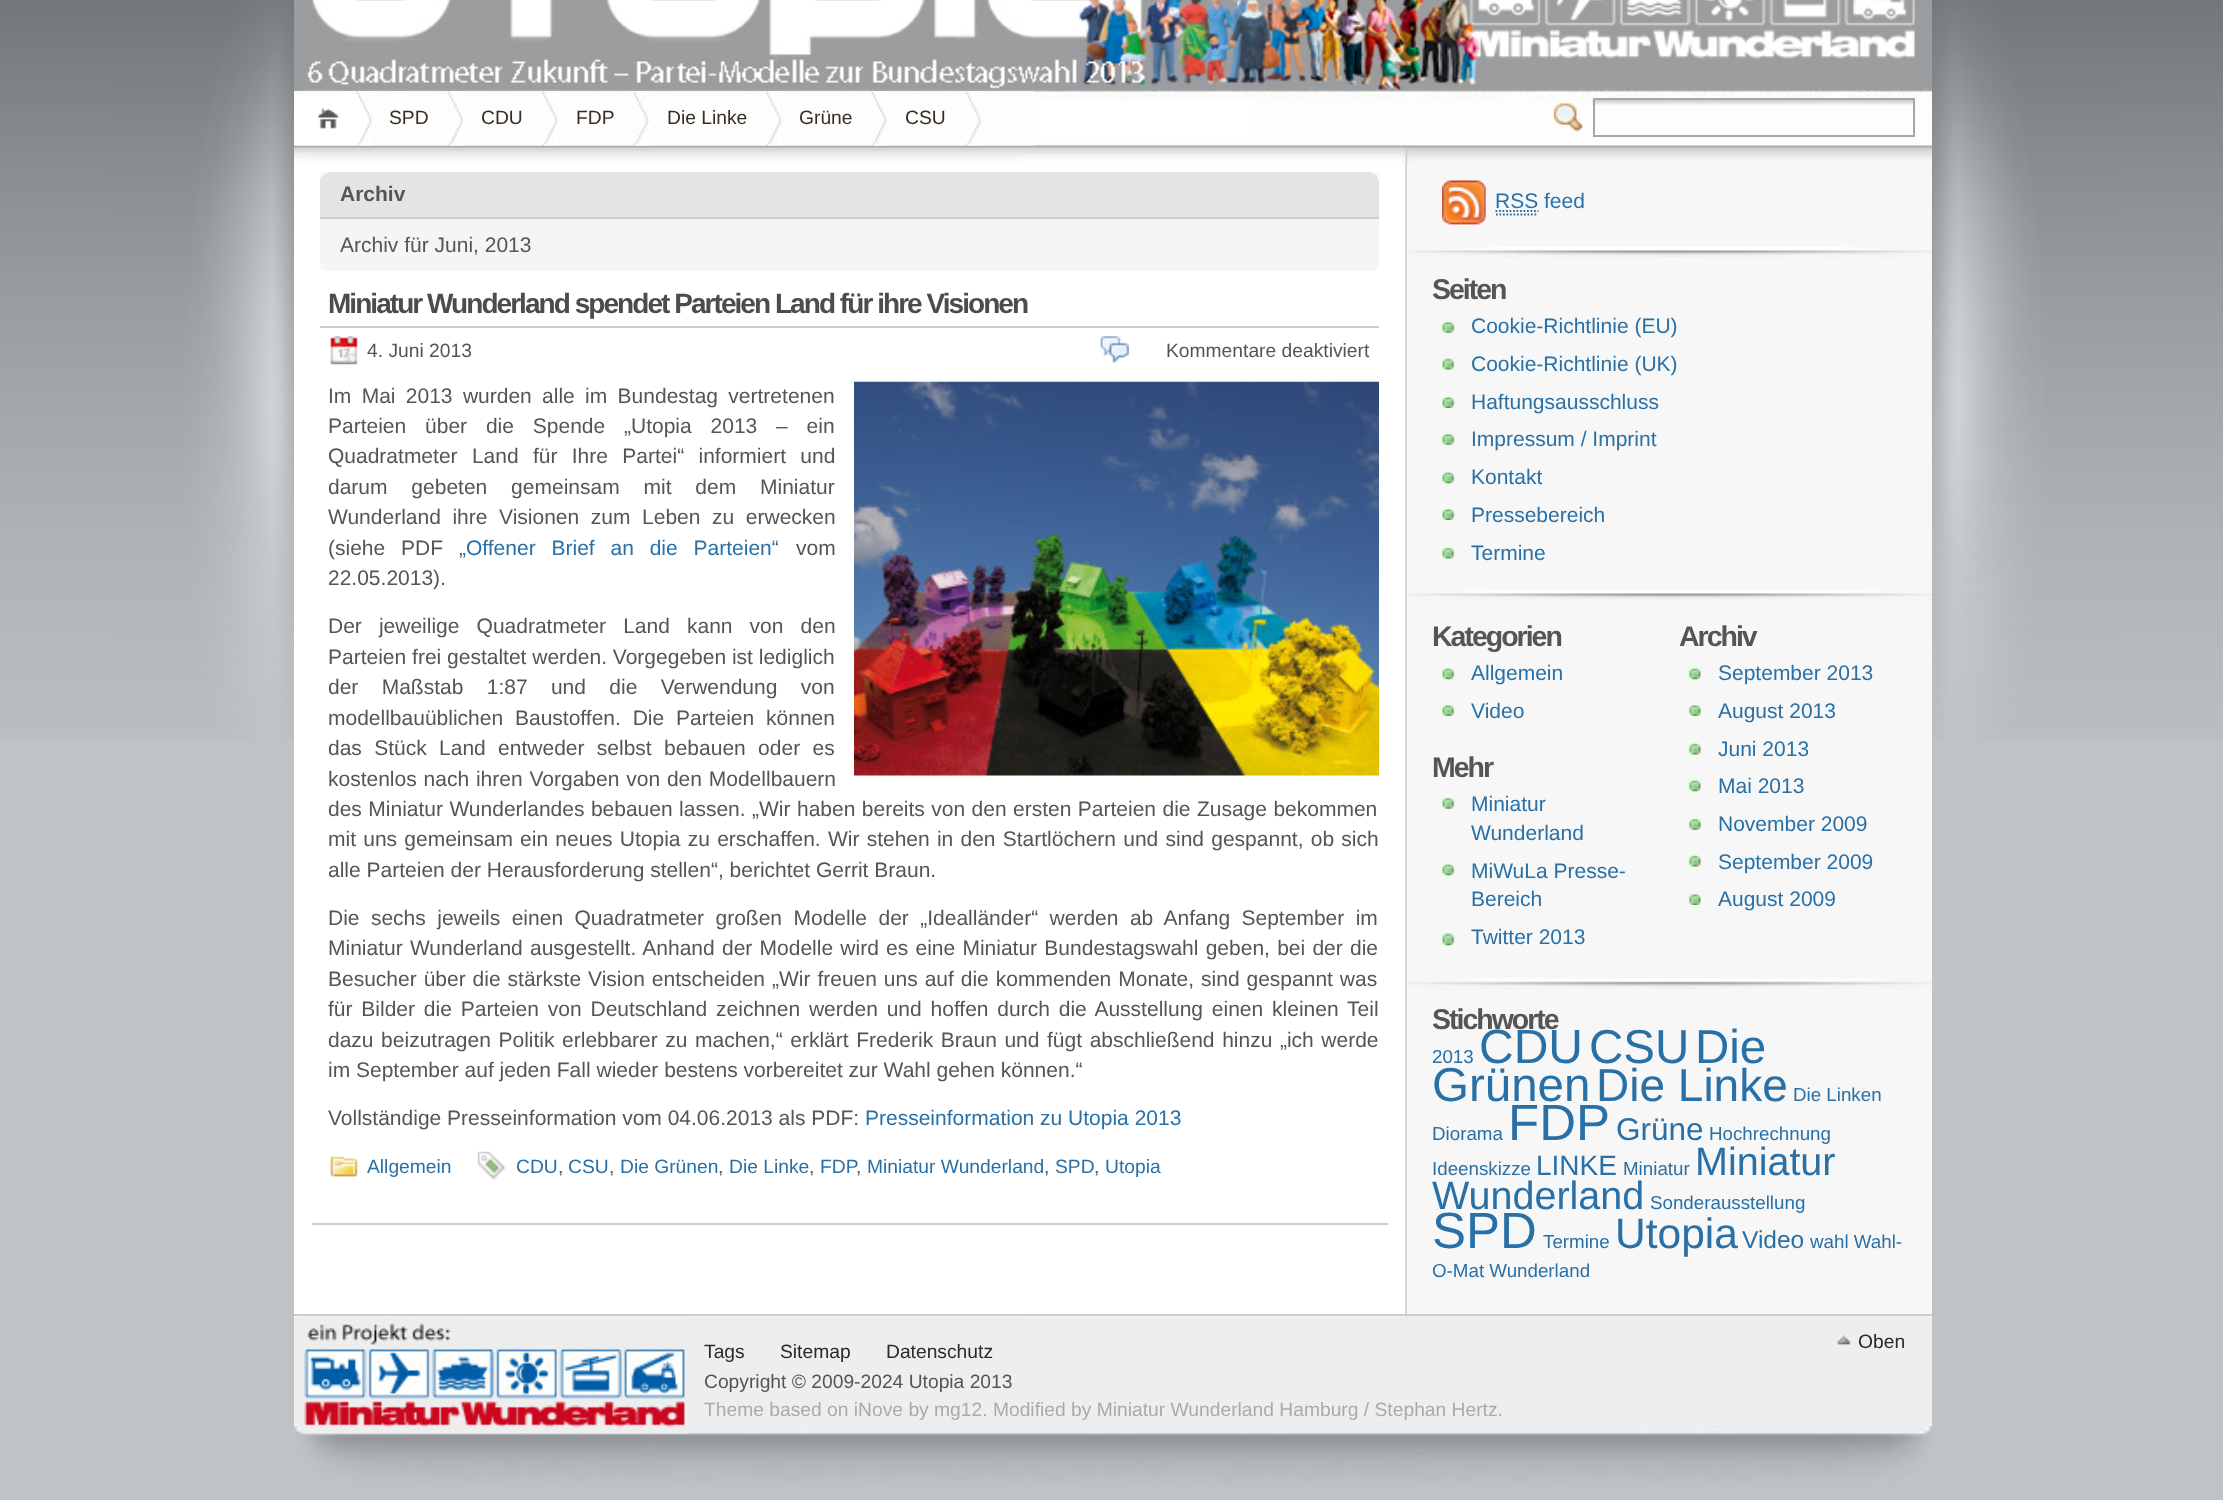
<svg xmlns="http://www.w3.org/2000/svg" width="2223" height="1500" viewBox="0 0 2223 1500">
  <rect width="100%" height="100%" fill="#bec3c6"/>
  <image x="0" y="0" width="2223" height="740" href="img1.png"/>
  <image x="109" y="0" width="2008" height="741" href="img2.png"/>
  <image x="294" y="0" width="1638" height="163" href="img3.png"/>
  <image x="294" y="91" width="79" height="55" href="img4.png"/>
  <image x="356" y="91" width="108" height="55" href="img5.png"/>
  <text x="389" y="124" font-family="Liberation Sans" font-size="19.25" fill="#382e1f">SPD</text>
  <image x="447" y="91" width="112" height="55" href="img6.png"/>
  <text x="481" y="124" font-family="Liberation Sans" font-size="19.25" fill="#382e1f">CDU</text>
  <image x="542" y="91" width="108" height="55" href="img7.png"/>
  <text x="576" y="124" font-family="Liberation Sans" font-size="19.25" fill="#382e1f">FDP</text>
  <image x="633" y="91" width="150" height="55" href="img8.png"/>
  <text x="667" y="124" font-family="Liberation Sans" font-size="19.25" fill="#382e1f">Die Linke</text>
  <image x="766" y="91" width="122" height="55" href="img9.png"/>
  <text x="799" y="124" font-family="Liberation Sans" font-size="19.25" fill="#382e1f">Grüne</text>
  <image x="871" y="91" width="111" height="55" href="img10.png"/>
  <text x="905" y="124" font-family="Liberation Sans" font-size="19.25" fill="#382e1f">CSU</text>
  <image x="965" y="91" width="70" height="55" href="img11.png"/>
  <image x="1554" y="103" width="30" height="29" href="img12.png"/>
  <image x="1592" y="100" width="321" height="6" href="img13.png"/>
  <rect x="1594" y="99" width="320" height="37" fill="none" stroke="#a6a6a6" stroke-width="2"/>
  <rect x="294" y="163" width="1112" height="1151" fill="#ffffff"/>
  <image x="1405" y="163" width="2" height="1151" href="img14.png"/>
  <rect x="320" y="172" width="1059" height="45" fill="#e3e4e6"/>
  <image x="320" y="172" width="1059" height="7" href="img15.png"/>
  <rect x="320" y="217" width="1059" height="2" fill="#cccccc"/>
  <text x="340" y="201" font-family="Liberation Sans" font-size="21" font-weight="bold" fill="#555555">Archiv</text>
  <rect x="320" y="219" width="1059" height="52" fill="#f4f5f7"/>
  <image x="320" y="265" width="1059" height="6" href="img16.png"/>
  <text x="340" y="252" font-family="Liberation Sans" font-size="21" fill="#555555">Archiv für Juni, 2013</text>
  <rect x="320" y="326" width="1059" height="2" fill="#cccccc"/>
  <text x="328" y="313" font-family="Liberation Sans" font-size="28" font-weight="bold" letter-spacing="-1.95" fill="#4c4c4c">Miniatur Wunderland spendet Parteien Land für ihre Visionen</text>
  <image x="330" y="336" width="28" height="29" href="img17.png"/>
  <text x="367" y="357" font-family="Liberation Sans" font-size="19.25" fill="#555555">4. Juni 2013</text>
  <image x="1100" y="336" width="29" height="27" href="img18.png"/>
  <text x="1166" y="357" font-family="Liberation Sans" font-size="19.25" fill="#555555">Kommentare deaktiviert</text>
  <text x="328" y="403" word-spacing="4.5" font-family="Liberation Sans" font-size="21" fill="#555555">Im Mai 2013 wurden alle im Bundestag vertretenen</text>
  <image x="854" y="381" width="525" height="395" href="img19.png"/>
  <text x="328" y="433" word-spacing="13" font-family="Liberation Sans" font-size="21" fill="#555555">Parteien über die Spende „Utopia 2013 – ein</text>
  <text x="328" y="463" word-spacing="8.5" font-family="Liberation Sans" font-size="21" fill="#555555">Quadratmeter Land für Ihre Partei“ informiert und</text>
  <text x="328" y="494" word-spacing="18" font-family="Liberation Sans" font-size="21" fill="#555555">darum gebeten gemeinsam mit dem Miniatur</text>
  <text x="328" y="524" word-spacing="5.75" font-family="Liberation Sans" font-size="21" fill="#555555">Wunderland ihre Visionen zum Leben zu erwecken</text>
  <text x="328" y="555" word-spacing="10" font-family="Liberation Sans" font-size="21" fill="#555555">(siehe PDF</text>
  <text x="459" y="555" word-spacing="10" font-family="Liberation Sans" font-size="21" fill="#2970a6">„Offener Brief an die Parteien“</text>
  <text x="796" y="555" font-family="Liberation Sans" font-size="21" fill="#555555">vom</text>
  <text x="328" y="585" font-family="Liberation Sans" font-size="21" fill="#555555">22.05.2013).</text>
  <text x="328" y="633" word-spacing="11.25" font-family="Liberation Sans" font-size="21" fill="#555555">Der jeweilige Quadratmeter Land kann von den</text>
  <text x="328" y="664" font-family="Liberation Sans" font-size="21" fill="#555555">Parteien frei gestaltet werden. Vorgegeben ist lediglich</text>
  <text x="328" y="694" word-spacing="17.5" font-family="Liberation Sans" font-size="21" fill="#555555">der Maßstab 1:87 und die Verwendung von</text>
  <text x="328" y="725" word-spacing="6" font-family="Liberation Sans" font-size="21" fill="#555555">modellbauüblichen Baustoffen. Die Parteien können</text>
  <text x="328" y="755" word-spacing="6.5" font-family="Liberation Sans" font-size="21" fill="#555555">das Stück Land entweder selbst bebauen oder es</text>
  <text x="328" y="786" word-spacing="1" font-family="Liberation Sans" font-size="21" fill="#555555">kostenlos nach ihren Vorgaben von den Modellbauern</text>
  <text x="328" y="816" word-spacing="0.6" font-family="Liberation Sans" font-size="21" fill="#555555">des Miniatur Wunderlandes bebauen lassen. „Wir haben bereits von den ersten Parteien die Zusage bekommen</text>
  <text x="328" y="846" word-spacing="1.4" font-family="Liberation Sans" font-size="21" fill="#555555">mit uns gemeinsam ein neues Utopia zu erschaffen. Wir stehen in den Startlöchern und sind gespannt, ob sich</text>
  <text x="328" y="877" font-family="Liberation Sans" font-size="21" fill="#555555">alle Parteien der Herausforderung stellen“, berichtet Gerrit Braun.</text>
  <text x="328" y="925" word-spacing="5.6" font-family="Liberation Sans" font-size="21" fill="#555555">Die sechs jeweils einen Quadratmeter großen Modelle der „Idealländer“ werden ab Anfang September im</text>
  <text x="328" y="955" word-spacing="1.4" font-family="Liberation Sans" font-size="21" fill="#555555">Miniatur Wunderland ausgestellt. Anhand der Modelle wird es eine Miniatur Bundestagswahl geben, bei der die</text>
  <text x="328" y="986" word-spacing="1.1" font-family="Liberation Sans" font-size="21" fill="#555555">Besucher über die stärkste Vision entscheiden „Wir freuen uns auf die kommenden Monate, sind gespannt was</text>
  <text x="328" y="1016" word-spacing="3" font-family="Liberation Sans" font-size="21" fill="#555555">für Bilder die Parteien von Deutschland zeichnen werden und hoffen durch die Ausstellung einen kleinen Teil</text>
  <text x="328" y="1047" word-spacing="1.75" font-family="Liberation Sans" font-size="21" fill="#555555">dazu beizutragen Politik erlebbarer zu machen,“ erklärt Frederik Braun und fügt abschließend hinzu „ich werde</text>
  <text x="328" y="1077" font-family="Liberation Sans" font-size="21" fill="#555555">im September auf jeden Fall wieder bestens vorbereitet zur Wahl gehen können.“</text>
  <text x="328" y="1125" font-family="Liberation Sans" font-size="21" fill="#555555">Vollständige Presseinformation vom 04.06.2013 als PDF:</text>
  <text x="865" y="1125" font-family="Liberation Sans" font-size="21" fill="#2970a6">Presseinformation zu Utopia 2013</text>
  <image x="330" y="1156" width="28" height="21" href="img20.png"/>
  <text x="367" y="1173" font-family="Liberation Sans" font-size="19.25" fill="#2970a6">Allgemein</text>
  <image x="477" y="1151" width="29" height="29" href="img21.png"/>
  <text x="516" y="1173" font-family="Liberation Sans" font-size="19.25" fill="#2970a6">CDU</text>
  <text x="558" y="1173" font-family="Liberation Sans" font-size="19.25" fill="#555555">,</text>
  <text x="568" y="1173" font-family="Liberation Sans" font-size="19.25" fill="#2970a6">CSU</text>
  <text x="609" y="1173" font-family="Liberation Sans" font-size="19.25" fill="#555555">,</text>
  <text x="620" y="1173" font-family="Liberation Sans" font-size="19.25" fill="#2970a6">Die Grünen</text>
  <text x="718" y="1173" font-family="Liberation Sans" font-size="19.25" fill="#555555">,</text>
  <text x="729" y="1173" font-family="Liberation Sans" font-size="19.25" fill="#2970a6">Die Linke</text>
  <text x="809" y="1173" font-family="Liberation Sans" font-size="19.25" fill="#555555">,</text>
  <text x="820" y="1173" font-family="Liberation Sans" font-size="19.25" fill="#2970a6">FDP</text>
  <text x="856" y="1173" font-family="Liberation Sans" font-size="19.25" fill="#555555">,</text>
  <text x="867" y="1173" font-family="Liberation Sans" font-size="19.25" fill="#2970a6">Miniatur Wunderland</text>
  <text x="1044" y="1173" font-family="Liberation Sans" font-size="19.25" fill="#555555">,</text>
  <text x="1055" y="1173" font-family="Liberation Sans" font-size="19.25" fill="#2970a6">SPD</text>
  <text x="1094" y="1173" font-family="Liberation Sans" font-size="19.25" fill="#555555">,</text>
  <text x="1105" y="1173" font-family="Liberation Sans" font-size="19.25" fill="#2970a6">Utopia</text>
  <rect x="312" y="1223" width="1076" height="2" fill="#cccccc"/>
  <rect x="1407" y="163" width="525" height="1151" fill="#f7f7f7"/>
  <image x="1407" y="247" width="525" height="11" href="img22.png"/>
  <image x="1442" y="180" width="44" height="45" href="img23.png"/>
  <text x="1495" y="208" font-family="Liberation Sans" font-size="21" fill="#2970a6">RSS feed</text>
  <path d="M1496 214.5H1538M1495.5 211H1538.5" fill="none" stroke="#2970a6" stroke-width="1.8" stroke-dasharray="1.75 1.75"/>
  <image x="1407" y="590" width="525" height="11" href="img22.png"/>
  <text x="1432" y="299" font-family="Liberation Sans" font-size="28.5" font-weight="bold" letter-spacing="-2" fill="#555555">Seiten</text>
  <image x="1442" y="321" width="13" height="12" href="img24.png"/>
  <text x="1471" y="333" font-family="Liberation Sans" font-size="21" fill="#2970a6">Cookie-Richtlinie (EU)</text>
  <image x="1442" y="358" width="13" height="12" href="img25.png"/>
  <text x="1471" y="371" font-family="Liberation Sans" font-size="21" fill="#2970a6">Cookie-Richtlinie (UK)</text>
  <image x="1442" y="397" width="13" height="11" href="img26.png"/>
  <text x="1471" y="409" font-family="Liberation Sans" font-size="21" fill="#2970a6">Haftungsausschluss</text>
  <image x="1442" y="433" width="13" height="12" href="img24.png"/>
  <text x="1471" y="446" font-family="Liberation Sans" font-size="21" fill="#2970a6">Impressum / Imprint</text>
  <image x="1442" y="472" width="13" height="12" href="img27.png"/>
  <text x="1471" y="484" font-family="Liberation Sans" font-size="21" fill="#2970a6">Kontakt</text>
  <image x="1442" y="509" width="13" height="11" href="img26.png"/>
  <text x="1471" y="522" font-family="Liberation Sans" font-size="21" fill="#2970a6">Pressebereich</text>
  <image x="1442" y="547" width="13" height="12" href="img25.png"/>
  <text x="1471" y="560" font-family="Liberation Sans" font-size="21" fill="#2970a6">Termine</text>
  <text x="1432" y="646" font-family="Liberation Sans" font-size="28.5" font-weight="bold" letter-spacing="-2" fill="#555555">Kategorien</text>
  <image x="1442" y="668" width="13" height="12" href="img27.png"/>
  <text x="1471" y="680" font-family="Liberation Sans" font-size="21" fill="#2970a6">Allgemein</text>
  <image x="1442" y="705" width="13" height="11" href="img26.png"/>
  <text x="1471" y="718" font-family="Liberation Sans" font-size="21" fill="#2970a6">Video</text>
  <text x="1432" y="777" font-family="Liberation Sans" font-size="28.5" font-weight="bold" letter-spacing="-2" fill="#555555">Mehr</text>
  <image x="1442" y="797" width="13" height="12" href="img24.png"/>
  <text x="1471" y="811" font-family="Liberation Sans" font-size="21" fill="#2970a6">Miniatur</text>
  <text x="1471" y="840" font-family="Liberation Sans" font-size="21" fill="#2970a6">Wunderland</text>
  <image x="1442" y="864" width="13" height="12" href="img27.png"/>
  <text x="1471" y="878" font-family="Liberation Sans" font-size="21" fill="#2970a6">MiWuLa Presse-</text>
  <text x="1471" y="906" font-family="Liberation Sans" font-size="21" fill="#2970a6">Bereich</text>
  <image x="1442" y="933" width="13" height="13" href="img28.png"/>
  <text x="1471" y="944" font-family="Liberation Sans" font-size="21" fill="#2970a6">Twitter 2013</text>
  <text x="1679" y="646" font-family="Liberation Sans" font-size="28.5" font-weight="bold" letter-spacing="-2" fill="#555555">Archiv</text>
  <image x="1688" y="668" width="13" height="12" href="img29.png"/>
  <text x="1718" y="680" font-family="Liberation Sans" font-size="21" fill="#2970a6">September 2013</text>
  <image x="1688" y="705" width="13" height="11" href="img30.png"/>
  <text x="1718" y="718" font-family="Liberation Sans" font-size="21" fill="#2970a6">August 2013</text>
  <image x="1688" y="743" width="13" height="12" href="img31.png"/>
  <text x="1718" y="756" font-family="Liberation Sans" font-size="21" fill="#2970a6">Juni 2013</text>
  <image x="1688" y="780" width="13" height="12" href="img29.png"/>
  <text x="1718" y="793" font-family="Liberation Sans" font-size="21" fill="#2970a6">Mai 2013</text>
  <image x="1688" y="818" width="13" height="12" href="img32.png"/>
  <text x="1718" y="831" font-family="Liberation Sans" font-size="21" fill="#2970a6">November 2009</text>
  <image x="1688" y="855" width="13" height="12" href="img31.png"/>
  <text x="1718" y="869" font-family="Liberation Sans" font-size="21" fill="#2970a6">September 2009</text>
  <image x="1688" y="894" width="13" height="11" href="img30.png"/>
  <text x="1718" y="906" font-family="Liberation Sans" font-size="21" fill="#2970a6">August 2009</text>
  <image x="1407" y="978" width="525" height="11" href="img33.png"/>
  <text x="1432" y="1029" font-family="Liberation Sans" font-size="28.5" font-weight="bold" letter-spacing="-2" fill="#555555">Stichworte</text>
  <text x="1432" y="1063" font-family="Liberation Sans" font-size="18.75" fill="#2970a6">2013</text>
  <text x="1479" y="1063" font-family="Liberation Sans" font-size="48" fill="#2970a6">CDU</text>
  <text x="1589" y="1063" font-family="Liberation Sans" font-size="47.5" fill="#2970a6">CSU</text>
  <text x="1695" y="1063" font-family="Liberation Sans" font-size="47.5" fill="#2970a6">Die</text>
  <text x="1432" y="1101" font-family="Liberation Sans" font-size="47.5" fill="#2970a6">Grünen</text>
  <text x="1596" y="1101" font-family="Liberation Sans" font-size="46" fill="#2970a6">Die Linke</text>
  <text x="1793" y="1101" font-family="Liberation Sans" font-size="18.75" fill="#2970a6">Die Linken</text>
  <text x="1432" y="1140" font-family="Liberation Sans" font-size="18.75" fill="#2970a6">Diorama</text>
  <text x="1508" y="1140" font-family="Liberation Sans" font-size="51" fill="#2970a6">FDP</text>
  <text x="1616" y="1140" font-family="Liberation Sans" font-size="31.5" fill="#2970a6">Grüne</text>
  <text x="1709" y="1140" font-family="Liberation Sans" font-size="18.75" fill="#2970a6">Hochrechnung</text>
  <text x="1432" y="1175" font-family="Liberation Sans" font-size="18.75" fill="#2970a6">Ideenskizze</text>
  <text x="1536" y="1175" font-family="Liberation Sans" font-size="28" fill="#2970a6">LINKE</text>
  <text x="1623" y="1175" font-family="Liberation Sans" font-size="18.75" fill="#2970a6">Miniatur</text>
  <text x="1695" y="1175" font-family="Liberation Sans" font-size="39.5" fill="#2970a6">Miniatur</text>
  <text x="1432" y="1209" font-family="Liberation Sans" font-size="39.5" fill="#2970a6">Wunderland</text>
  <text x="1650" y="1209" font-family="Liberation Sans" font-size="18.75" fill="#2970a6">Sonderausstellung</text>
  <text x="1432" y="1248" font-family="Liberation Sans" font-size="51" fill="#2970a6">SPD</text>
  <text x="1543" y="1248" font-family="Liberation Sans" font-size="18.75" fill="#2970a6">Termine</text>
  <text x="1615" y="1248" font-family="Liberation Sans" font-size="42.5" fill="#2970a6">Utopia</text>
  <text x="1742" y="1248" font-family="Liberation Sans" font-size="24.5" fill="#2970a6">Video</text>
  <text x="1810" y="1248" font-family="Liberation Sans" font-size="18.75" fill="#2970a6">wahl Wahl-</text>
  <text x="1432" y="1277" font-family="Liberation Sans" font-size="18.75" fill="#2970a6">O-Mat Wunderland</text>
  <image x="294" y="1316" width="1638" height="171" href="img34.png"/>
  <rect x="294" y="1314" width="1638" height="2" fill="#cccccc"/>
  <image x="303" y="1316" width="385" height="118" href="img35.png"/>
  <image x="1837" y="1335" width="14" height="10" href="img36.png"/>
  <text x="1858" y="1348" font-family="Liberation Sans" font-size="19.25" fill="#2a2a2a">Oben</text>
  <text x="704" y="1358" font-family="Liberation Sans" font-size="19.25" fill="#2a2a2a">Tags</text>
  <text x="780" y="1358" font-family="Liberation Sans" font-size="19.25" fill="#2a2a2a">Sitemap</text>
  <text x="886" y="1358" font-family="Liberation Sans" font-size="19.25" fill="#2a2a2a">Datenschutz</text>
  <text x="704" y="1388" font-family="Liberation Sans" font-size="19.25" fill="#555555">Copyright © 2009-2024 Utopia 2013</text>
  <text x="704" y="1416" font-family="Liberation Sans" font-size="19.25" fill="#aaaaaa">Theme based on iNove by mg12. Modified by Miniatur Wunderland Hamburg / Stephan Hertz.</text>
</svg>
